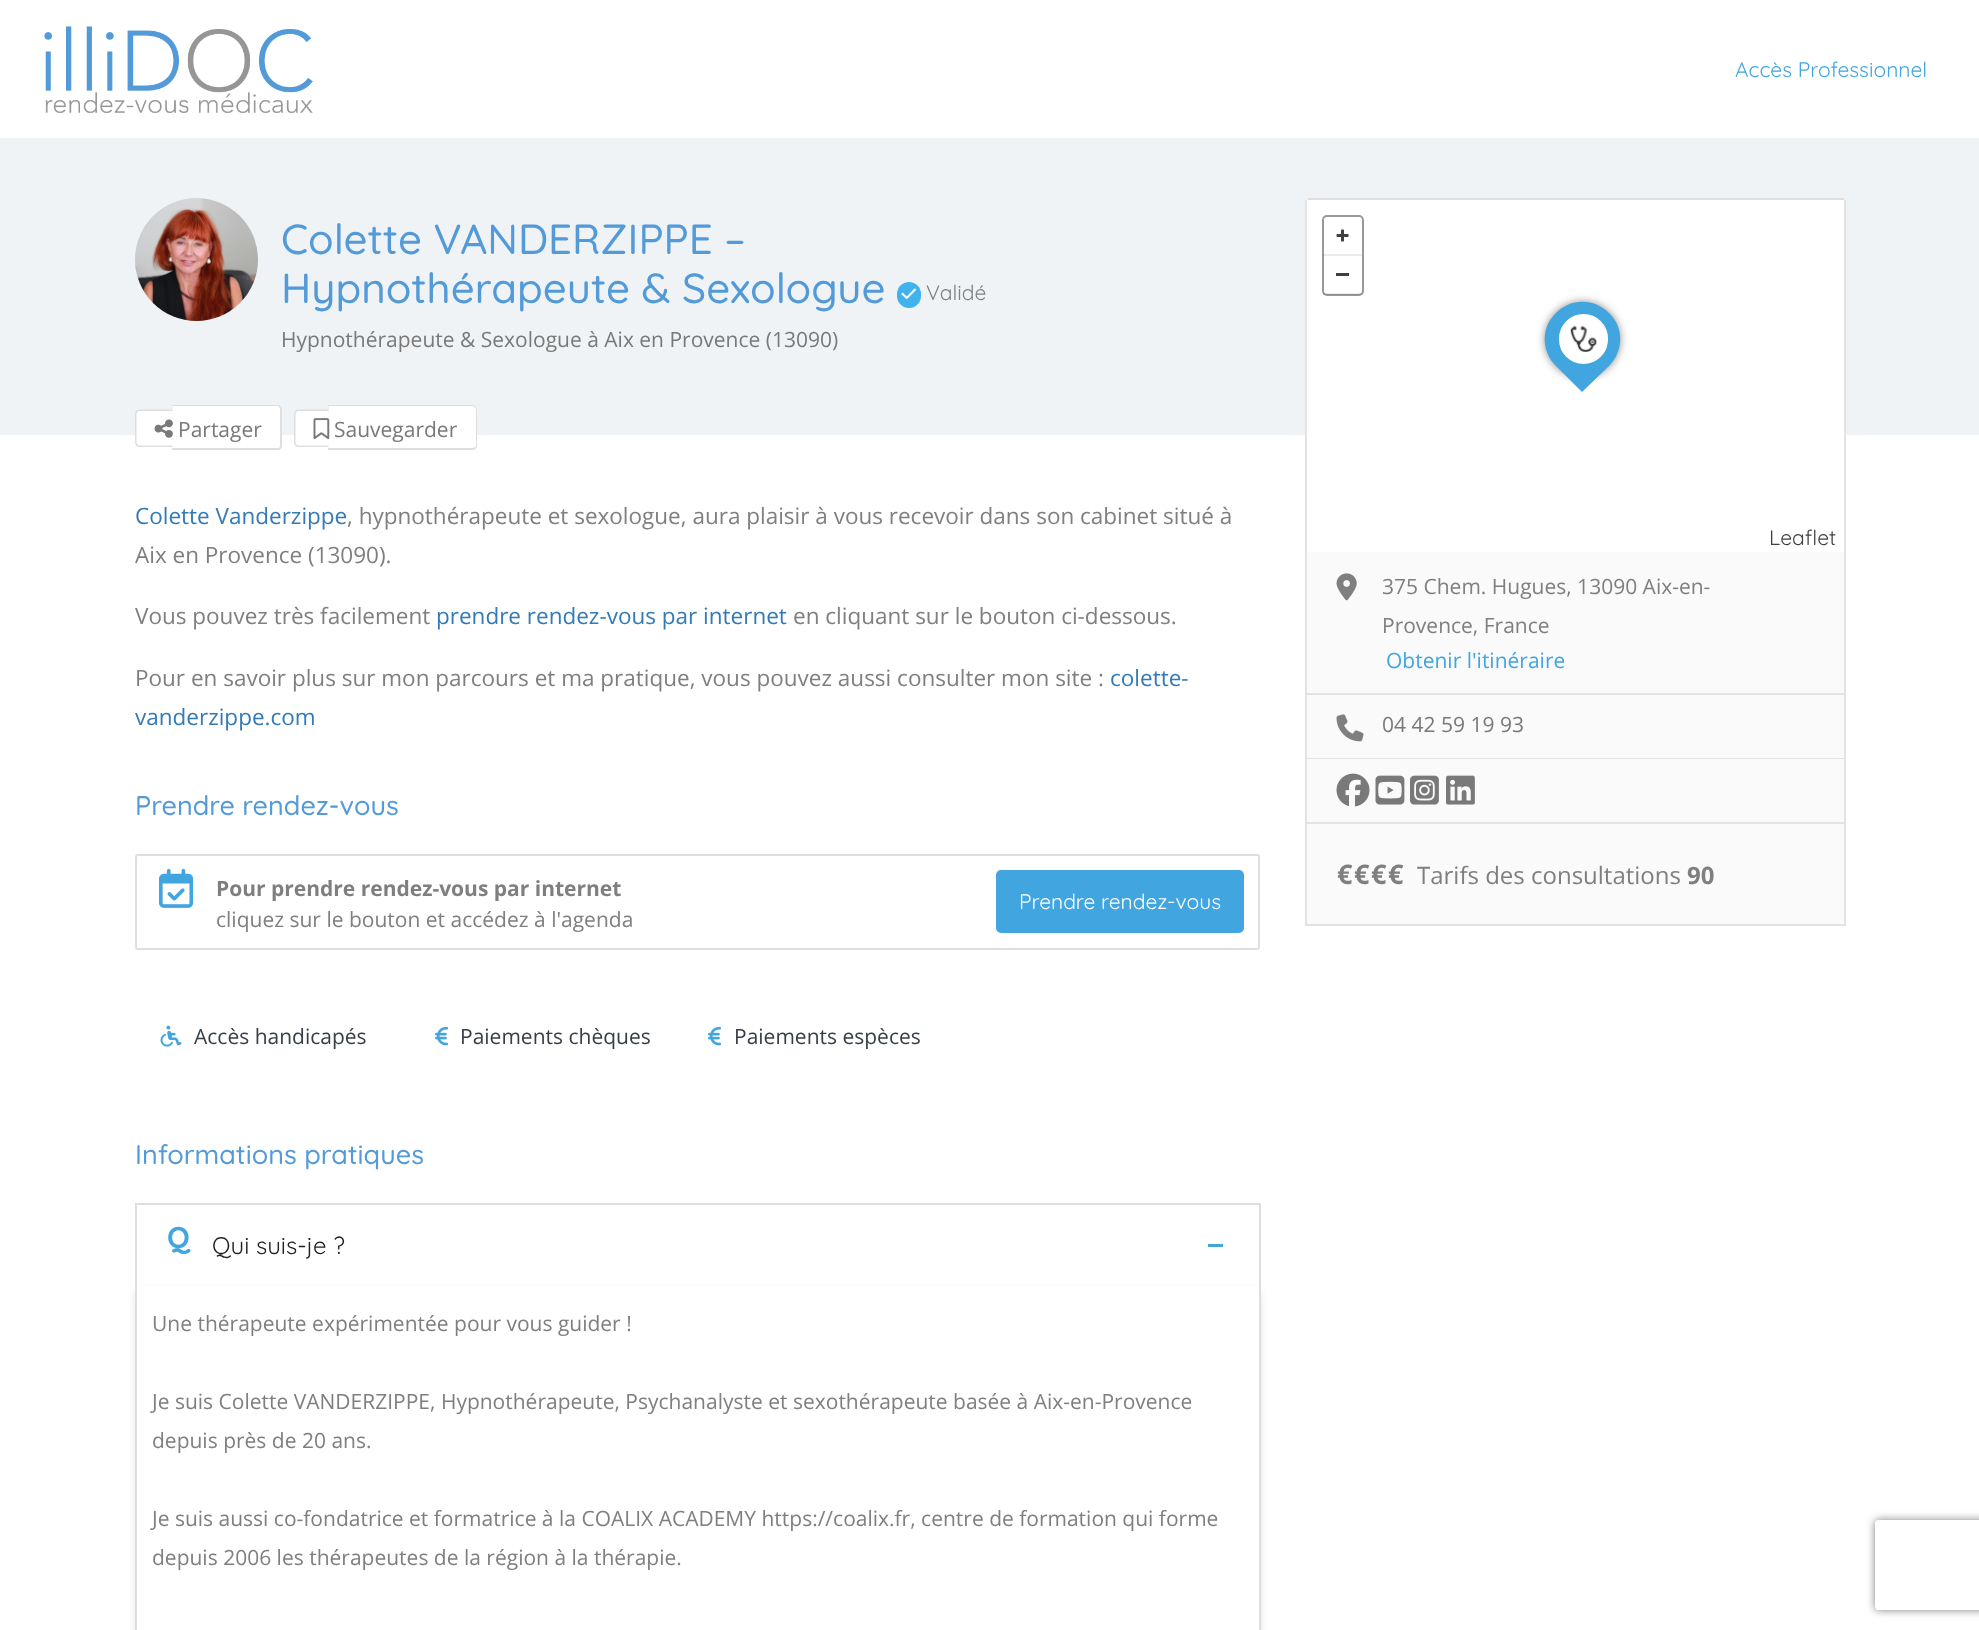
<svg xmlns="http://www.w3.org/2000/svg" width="1979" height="1630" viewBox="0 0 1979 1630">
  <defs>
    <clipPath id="clip1"><path d="M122 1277H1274V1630H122ZM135 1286H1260V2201H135Z" clip-rule="evenodd"/></clipPath>
    <filter id="blur1" x="-50%" y="-200%" width="200%" height="500%"><feGaussianBlur stdDeviation="4.5"/></filter>
    <filter id="blur2" x="-50%" y="-200%" width="200%" height="500%"><feGaussianBlur stdDeviation="4"/></filter>
    <clipPath id="clip2"><path d="M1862 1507H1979V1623H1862ZM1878 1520H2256C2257.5 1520 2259 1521.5 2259 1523V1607C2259 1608.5 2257.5 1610 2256 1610H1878C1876.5 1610 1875 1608.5 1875 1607V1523C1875 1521.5 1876.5 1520 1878 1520Z" clip-rule="evenodd"/></clipPath>
  </defs>
  <rect width="100%" height="100%" fill="#ffffff"/>
  <image x="44" y="26" width="269" height="87" href="img1.png"/>
  <text x="1735" y="77" font-family="Quicksand" font-size="21" fill="#41a6df">Accès Professionnel</text>
  <rect x="0" y="138" width="1979" height="297" fill="#f0f3f6"/>
  <image x="135" y="198" width="123" height="123" href="img2.png"/>
  <text x="281" y="254" font-family="Quicksand" font-size="42" font-weight="500" fill="#539ad9">Colette VANDERZIPPE –</text>
  <text x="281" y="303" font-family="Quicksand" font-size="42" font-weight="500" fill="#539ad9">Hypnothérapeute &amp; Sexologue</text>
  <rect x="897" y="282" width="24" height="26" rx="12" fill="#40b3ef"/>
  <image x="901" y="288" width="15" height="11" href="img3.png"/>
  <text x="926" y="300" font-family="Quicksand" font-size="21" fill="#7f7f7f">Validé</text>
  <text x="281" y="347" font-family="Open Sans" font-size="21" fill="#797979">Hypnothérapeute &amp; Sexologue à Aix en Provence (13090)</text>
  <path d="M140 410H173V447H140C137 447 135 445 135 442V415C135 412 137 410 140 410Z" fill="#ffffff"/>
  <path d="M139.5 409.5H172.5V447H139.5C137 447 135 445 135 442.5V414C135 411.5 137 409.5 139.5 409.5ZM139.5 411H172.5V445.5H139.5C138 445.5 136.5 444 136.5 442.5V414C136.5 412.5 138 411 139.5 411Z" fill="#dedede" fill-rule="evenodd"/>
  <path d="M173 405H277C280 405 282 407 282 410V445C282 448 280 450 277 450H173Z" fill="#ffffff"/>
  <path d="M172 405H278C280 405 282 407 282 410V446C282 448 280 450 278 450H172ZM172 406H278C279 406 280 408 280 410V446C280 447 279 448 278 448H172Z" fill="#dedede" fill-rule="evenodd"/>
  <image x="154" y="419" width="19" height="19" href="img4.png"/>
  <text x="178" y="437" font-family="Open Sans" font-size="21" fill="#797979">Partager</text>
  <path d="M299 410H329V447H299C296 447 294 445 294 442V415C294 412 296 410 299 410Z" fill="#ffffff"/>
  <path d="M298.5 409.5H328.5V447H298.5C296 447 294 445 294 442.5V414C294 411.5 296 409.5 298.5 409.5ZM298.5 411H328.5V445.5H298.5C297 445.5 295.5 444 295.5 442.5V414C295.5 412.5 297 411 298.5 411Z" fill="#dedede" fill-rule="evenodd"/>
  <path d="M329 405H472C475 405 477 407 477 410V445C477 448 475 450 472 450H329Z" fill="#ffffff"/>
  <path d="M328 405H472C475 405 477 407 477 410V446C477 448 475 450 472 450H328ZM328 406H472C474 406 476 408 476 410V446C476 447 474 448 472 448H328Z" fill="#dedede" fill-rule="evenodd"/>
  <image x="313" y="418" width="17" height="22" href="img5.png"/>
  <text x="334" y="437" font-family="Open Sans" font-size="21" fill="#797979">Sauvegarder</text>
  <text x="135" y="524" font-family="Open Sans" font-size="22.5" fill="#337ab7">Colette Vanderzippe</text>
  <text x="347" y="524" font-family="Open Sans" font-size="22.5" fill="#7f7f7f">, hypnothérapeute et sexologue, aura plaisir à vous recevoir dans son cabinet situé à</text>
  <text x="135" y="563" font-family="Open Sans" font-size="22.5" fill="#7f7f7f">Aix en Provence (13090).</text>
  <text x="135" y="624" font-family="Open Sans" font-size="22.5" fill="#7f7f7f">Vous pouvez très facilement</text>
  <text x="436" y="624" font-family="Open Sans" font-size="22.5" fill="#337ab7">prendre rendez-vous par internet</text>
  <text x="793" y="624" font-family="Open Sans" font-size="22.5" fill="#7f7f7f">en cliquant sur le bouton ci-dessous.</text>
  <text x="135" y="686" font-family="Open Sans" font-size="22.5" fill="#7f7f7f">Pour en savoir plus sur mon parcours et ma pratique, vous pouvez aussi consulter mon site :</text>
  <text x="1110" y="686" font-family="Open Sans" font-size="22.5" fill="#337ab7">colette-</text>
  <text x="135" y="725" font-family="Open Sans" font-size="22.5" fill="#337ab7">vanderzippe.com</text>
  <text x="135" y="815" font-family="Quicksand" font-size="27" font-weight="500" fill="#539ad9">Prendre rendez-vous</text>
  <rect x="136" y="855" width="1123" height="94" rx="2" fill="none" stroke="#dedede" stroke-width="2"/>
  <image x="159" y="868" width="35" height="40" href="img6.png"/>
  <text x="216" y="896" font-family="Open Sans" font-size="21" font-weight="bold" fill="#7f7f7f">Pour prendre rendez-vous par internet</text>
  <text x="216" y="927" font-family="Open Sans" font-size="21" fill="#7f7f7f">cliquez sur le bouton et accédez à l'agenda</text>
  <rect x="996" y="870" width="248" height="63" rx="5" fill="#41a6df"/>
  <text x="1019" y="909" font-family="Quicksand" font-size="21" fill="#ffffff">Prendre rendez-vous</text>
  <image x="160" y="1025" width="22" height="22" href="img7.png"/>
  <text x="194" y="1044" font-family="Open Sans" font-size="21" fill="#363f48">Accès handicapés</text>
  <image x="435" y="1026" width="14" height="20" href="img8.png"/>
  <text x="460" y="1044" font-family="Open Sans" font-size="21" fill="#363f48">Paiements chèques</text>
  <image x="708" y="1026" width="14" height="20" href="img8.png"/>
  <text x="734" y="1044" font-family="Open Sans" font-size="21" fill="#363f48">Paiements espèces</text>
  <text x="135" y="1164" font-family="Quicksand" font-size="27" font-weight="500" fill="#539ad9">Informations pratiques</text>
  <rect x="135" y="1203" width="1125" height="2" fill="#dedede"/>
  <g clip-path="url(#clip1)">
    <rect x="137" y="1292" width="1122" height="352" fill="#000000" fill-opacity="0.17" filter="url(#blur1)"/>
  </g>
  <rect x="1259" y="1203" width="2" height="83" fill="#dedede"/>
  <rect x="135" y="1203" width="2" height="83" fill="#dedede"/>
  <text x="167" y="1248" font-family="Quicksand" font-size="30" font-weight="bold" fill="#41a6df">Q</text>
  <text x="212" y="1254" font-family="Quicksand" font-size="24" fill="#212121">Qui suis-je ?</text>
  <rect x="1208" y="1244" width="15" height="3" fill="#41a6df"/>
  <rect x="1259" y="1286" width="2" height="344" fill="#dedede"/>
  <rect x="135" y="1286" width="2" height="344" fill="#dedede"/>
  <text x="152" y="1331" font-family="Open Sans" font-size="21" fill="#7f7f7f">Une thérapeute expérimentée pour vous guider !</text>
  <text x="152" y="1409" font-family="Open Sans" font-size="21" fill="#7f7f7f">Je suis Colette VANDERZIPPE, Hypnothérapeute, Psychanalyste et sexothérapeute basée à Aix-en-Provence</text>
  <text x="152" y="1448" font-family="Open Sans" font-size="21" fill="#7f7f7f">depuis près de 20 ans.</text>
  <text x="152" y="1526" font-family="Open Sans" font-size="21" fill="#7f7f7f">Je suis aussi co-fondatrice et formatrice à la COALIX ACADEMY https://coalix.fr, centre de formation qui forme</text>
  <text x="152" y="1565" font-family="Open Sans" font-size="21" fill="#7f7f7f">depuis 2006 les thérapeutes de la région à la thérapie.</text>
  <rect x="1308" y="198" width="536" height="2" fill="#dedede"/>
  <rect x="1307" y="200" width="537" height="235" fill="#ffffff"/>
  <rect x="1545" y="302" width="75" height="75" rx="37.5" fill="#000000" fill-opacity="0.47" filter="url(#blur2)"/>
  <path d="M1556 313C1571 298 1594 298 1609 313C1624 327 1624 351 1609 366L1582 392L1556 366C1541 351 1541 327 1556 313Z" fill="#41a6df"/>
  <rect x="1558" y="313" width="51" height="52" rx="25.5" fill="#ffffff" stroke="#41a6df" stroke-width="2"/>
  <image x="1570" y="325" width="27" height="27" href="img9.png"/>
  <rect x="1323" y="216" width="40" height="79" rx="4" fill="none" stroke="#999999" stroke-width="2"/>
  <image x="1336" y="229" width="13" height="13" href="img10.png"/>
  <rect x="1323" y="254" width="39" height="2" fill="#000000" fill-opacity="0.08"/>
  <rect x="1336" y="273" width="13" height="3" fill="#404040"/>
  <rect x="1323" y="293" width="39" height="2" fill="#000000" fill-opacity="0.08"/>
  <text x="1769" y="545" font-family="Quicksand" font-size="21" fill="#404040">Leaflet</text>
  <rect x="1844" y="200" width="2" height="726" fill="#e3e3e3"/>
  <rect x="1305" y="822" width="540" height="2" fill="#e3e3e3"/>
  <rect x="1305" y="200" width="2" height="624" fill="#e3e3e3"/>
  <rect x="1307" y="552" width="537" height="141" fill="#fafafa"/>
  <rect x="1307" y="693" width="537" height="2" fill="#e3e3e3"/>
  <image x="1336" y="573" width="21" height="28" href="img11.png"/>
  <text x="1382" y="594" font-family="Open Sans" font-size="21" fill="#7f7f7f">375 Chem. Hugues, 13090 Aix-en-</text>
  <text x="1382" y="633" font-family="Open Sans" font-size="21" fill="#7f7f7f">Provence, France</text>
  <text x="1386" y="668" font-family="Open Sans" font-size="21" fill="#41a6df">Obtenir l'itinéraire</text>
  <rect x="1307" y="695" width="537" height="63" fill="#fafafa"/>
  <rect x="1307" y="758" width="537" height="1" fill="#e3e3e3"/>
  <image x="1336" y="714" width="28" height="28" href="img12.png"/>
  <text x="1382" y="732" font-family="Open Sans" font-size="21" fill="#797979">04 42 59 19 93</text>
  <rect x="1307" y="759" width="537" height="63" fill="#fafafa"/>
  <image x="1336" y="773" width="34" height="34" href="img13.png"/>
  <image x="1375" y="775" width="30" height="30" href="img14.png"/>
  <image x="1410" y="775" width="29" height="30" href="img15.png"/>
  <image x="1446" y="775" width="29" height="30" href="img16.png"/>
  <rect x="1307" y="824" width="537" height="100" fill="#fafafa"/>
  <rect x="1305" y="924" width="540" height="2" fill="#e3e3e3"/>
  <rect x="1305" y="824" width="2" height="102" fill="#e3e3e3"/>
  <text x="1337" y="884" font-family="Open Sans" font-size="27" font-weight="bold" fill="#7f7f7f">€</text>
  <text x="1354" y="884" font-family="Open Sans" font-size="27" font-weight="bold" fill="#7f7f7f">€</text>
  <text x="1371" y="884" font-family="Open Sans" font-size="27" font-weight="bold" fill="#7f7f7f">€</text>
  <text x="1388" y="884" font-family="Open Sans" font-size="27" font-weight="bold" fill="#7f7f7f">€</text>
  <text x="1417" y="884" font-family="Open Sans" font-size="24" fill="#7f7f7f">Tarifs des consultations</text>
  <text x="1687" y="884" font-family="Open Sans" font-size="24" font-weight="bold" fill="#7f7f7f">90</text>
  <g clip-path="url(#clip2)">
    <rect x="1875" y="1520" width="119" height="90" rx="3" fill="#808080" filter="url(#blur2)"/>
  </g>
</svg>
